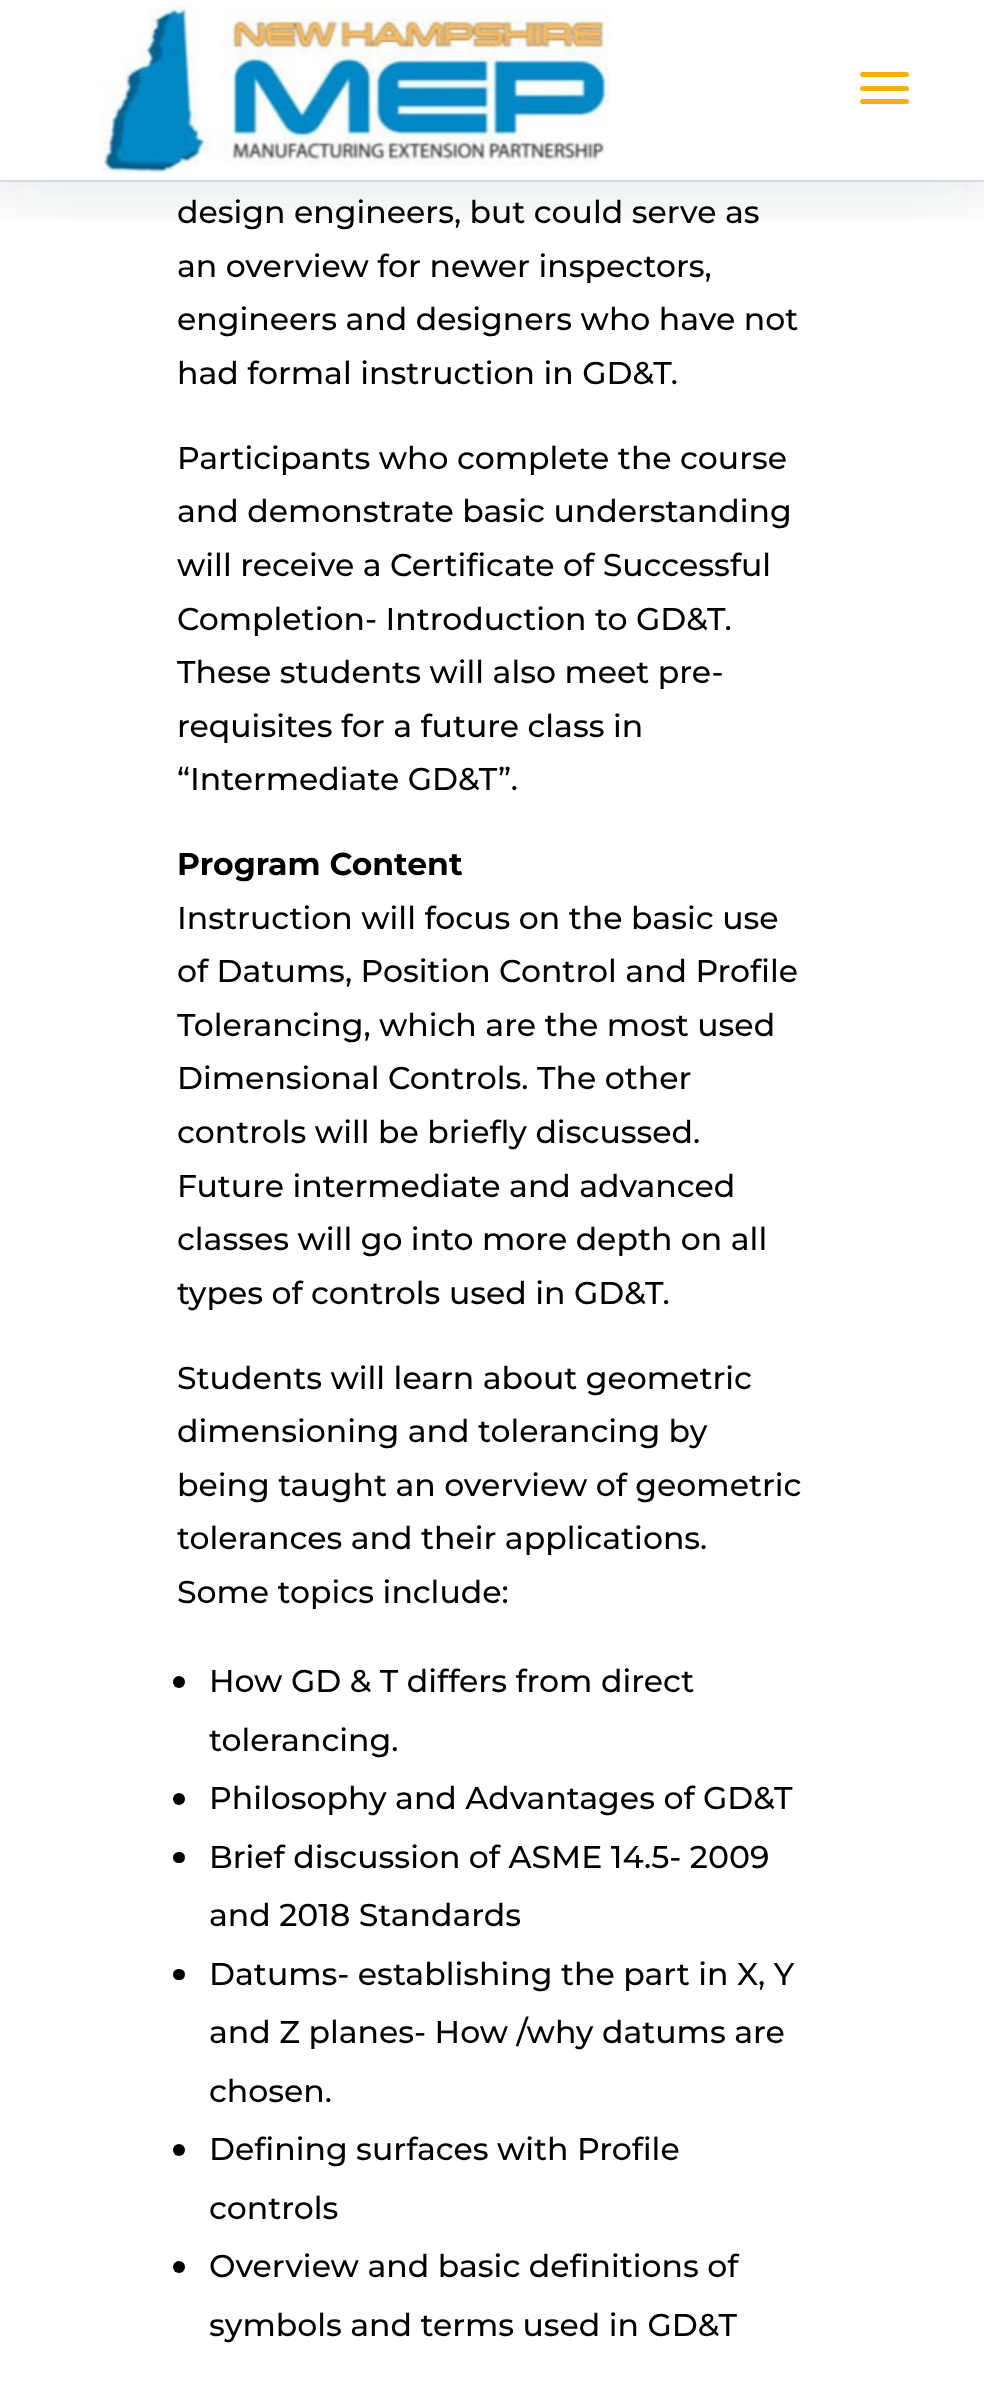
<svg xmlns="http://www.w3.org/2000/svg" width="984" height="2401" viewBox="0 0 984 2401">
  <defs>
    <clipPath id="clip1"><rect x="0" y="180" width="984" height="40"/></clipPath>
    <filter id="blur1" x="-50%" y="-200%" width="200%" height="500%"><feGaussianBlur stdDeviation="34"/></filter>
  </defs>
  <rect width="100%" height="100%" fill="#ffffff"/>
  <path d="M0 180V182H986V2V180Z" fill="#e6e6e6"/>
  <g clip-path="url(#clip1)">
    <rect x="0" y="0" width="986" height="180" fill="#073354" fill-opacity="0.17" filter="url(#blur1)"/>
  </g>
  <image x="100" y="6" width="510" height="168" href="img1.png"/>
  <rect x="860" y="72" width="49" height="5" rx="2.5" fill="#f7af11"/>
  <rect x="860" y="86" width="49" height="5" rx="2.5" fill="#f7af11"/>
  <rect x="860" y="99" width="49" height="5" rx="2.5" fill="#f7af11"/>
  <text x="177" y="223" font-family="Montserrat" font-size="31.5" font-weight="100" fill="#000000">design engineers, but could serve as</text>
  <text x="177" y="277" font-family="Montserrat" font-size="31.5" font-weight="100" fill="#000000">an overview for newer inspectors,</text>
  <text x="177" y="330" font-family="Montserrat" font-size="31.5" font-weight="100" fill="#000000">engineers and designers who have not</text>
  <text x="177" y="384" font-family="Montserrat" font-size="31.5" font-weight="100" fill="#000000">had formal instruction in GD&amp;T.</text>
  <text x="177" y="469" font-family="Montserrat" font-size="31.5" font-weight="100" fill="#000000">Participants who complete the course</text>
  <text x="177" y="522" font-family="Montserrat" font-size="31.5" font-weight="100" fill="#000000">and demonstrate basic understanding</text>
  <text x="177" y="576" font-family="Montserrat" font-size="31.5" font-weight="100" fill="#000000">will receive a Certificate of Successful</text>
  <text x="177" y="630" font-family="Montserrat" font-size="31.5" font-weight="100" fill="#000000">Completion- Introduction to GD&amp;T.</text>
  <text x="177" y="683" font-family="Montserrat" font-size="31.5" font-weight="100" fill="#000000">These students will also meet pre-</text>
  <text x="177" y="737" font-family="Montserrat" font-size="31.5" font-weight="100" fill="#000000">requisites for a future class in</text>
  <text x="177" y="790" font-family="Montserrat" font-size="31.5" font-weight="100" fill="#000000">“Intermediate GD&amp;T”.</text>
  <text x="177" y="875" font-family="'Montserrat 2'" font-size="31.5" font-weight="100" fill="#000000">Program Content</text>
  <text x="177" y="929" font-family="Montserrat" font-size="31.5" font-weight="100" fill="#000000">Instruction will focus on the basic use</text>
  <text x="177" y="982" font-family="Montserrat" font-size="31.5" font-weight="100" fill="#000000">of Datums, Position Control and Profile</text>
  <text x="177" y="1036" font-family="Montserrat" font-size="31.5" font-weight="100" fill="#000000">Tolerancing, which are the most used</text>
  <text x="177" y="1089" font-family="Montserrat" font-size="31.5" font-weight="100" fill="#000000">Dimensional Controls. The other</text>
  <text x="177" y="1143" font-family="Montserrat" font-size="31.5" font-weight="100" fill="#000000">controls will be briefly discussed.</text>
  <text x="177" y="1197" font-family="Montserrat" font-size="31.5" font-weight="100" fill="#000000">Future intermediate and advanced</text>
  <text x="177" y="1250" font-family="Montserrat" font-size="31.5" font-weight="100" fill="#000000">classes will go into more depth on all</text>
  <text x="177" y="1304" font-family="Montserrat" font-size="31.5" font-weight="100" fill="#000000">types of controls used in GD&amp;T.</text>
  <text x="177" y="1389" font-family="Montserrat" font-size="31.5" font-weight="100" fill="#000000">Students will learn about geometric</text>
  <text x="177" y="1442" font-family="Montserrat" font-size="31.5" font-weight="100" fill="#000000">dimensioning and tolerancing by</text>
  <text x="177" y="1496" font-family="Montserrat" font-size="31.5" font-weight="100" fill="#000000">being taught an overview of geometric</text>
  <text x="177" y="1549" font-family="Montserrat" font-size="31.5" font-weight="100" fill="#000000">tolerances and their applications.</text>
  <text x="177" y="1603" font-family="Montserrat" font-size="31.5" font-weight="100" fill="#000000">Some topics include:</text>
  <circle cx="179" cy="1682" r="6" fill="#000000"/>
  <text x="209" y="1692" font-family="Montserrat" font-size="31.5" font-weight="100" fill="#000000">How GD &amp; T differs from direct</text>
  <text x="209" y="1751" font-family="Montserrat" font-size="31.5" font-weight="100" fill="#000000">tolerancing.</text>
  <circle cx="179" cy="1799" r="6" fill="#000000"/>
  <text x="209" y="1809" font-family="Montserrat" font-size="31.5" font-weight="100" fill="#000000">Philosophy and Advantages of GD&amp;T</text>
  <rect x="173" y="1852" width="12" height="11" rx="5.5" fill="#000000"/>
  <text x="209" y="1868" font-family="Montserrat" font-size="31.5" font-weight="100" fill="#000000">Brief discussion of ASME 14.5- 2009</text>
  <text x="209" y="1926" font-family="Montserrat" font-size="31.5" font-weight="100" fill="#000000">and 2018 Standards</text>
  <rect x="173" y="1969" width="12" height="11" rx="5.5" fill="#000000"/>
  <text x="209" y="1985" font-family="Montserrat" font-size="31.5" font-weight="100" fill="#000000">Datums- establishing the part in X, Y</text>
  <text x="209" y="2043" font-family="Montserrat" font-size="31.5" font-weight="100" fill="#000000">and Z planes- How /why datums are</text>
  <text x="209" y="2102" font-family="Montserrat" font-size="31.5" font-weight="100" fill="#000000">chosen.</text>
  <circle cx="179" cy="2150" r="6" fill="#000000"/>
  <text x="209" y="2160" font-family="Montserrat" font-size="31.5" font-weight="100" fill="#000000">Defining surfaces with Profile</text>
  <text x="209" y="2219" font-family="Montserrat" font-size="31.5" font-weight="100" fill="#000000">controls</text>
  <circle cx="179" cy="2267" r="6" fill="#000000"/>
  <text x="209" y="2277" font-family="Montserrat" font-size="31.5" font-weight="100" fill="#000000">Overview and basic definitions of</text>
  <text x="209" y="2336" font-family="Montserrat" font-size="31.5" font-weight="100" fill="#000000">symbols and terms used in GD&amp;T</text>
</svg>
